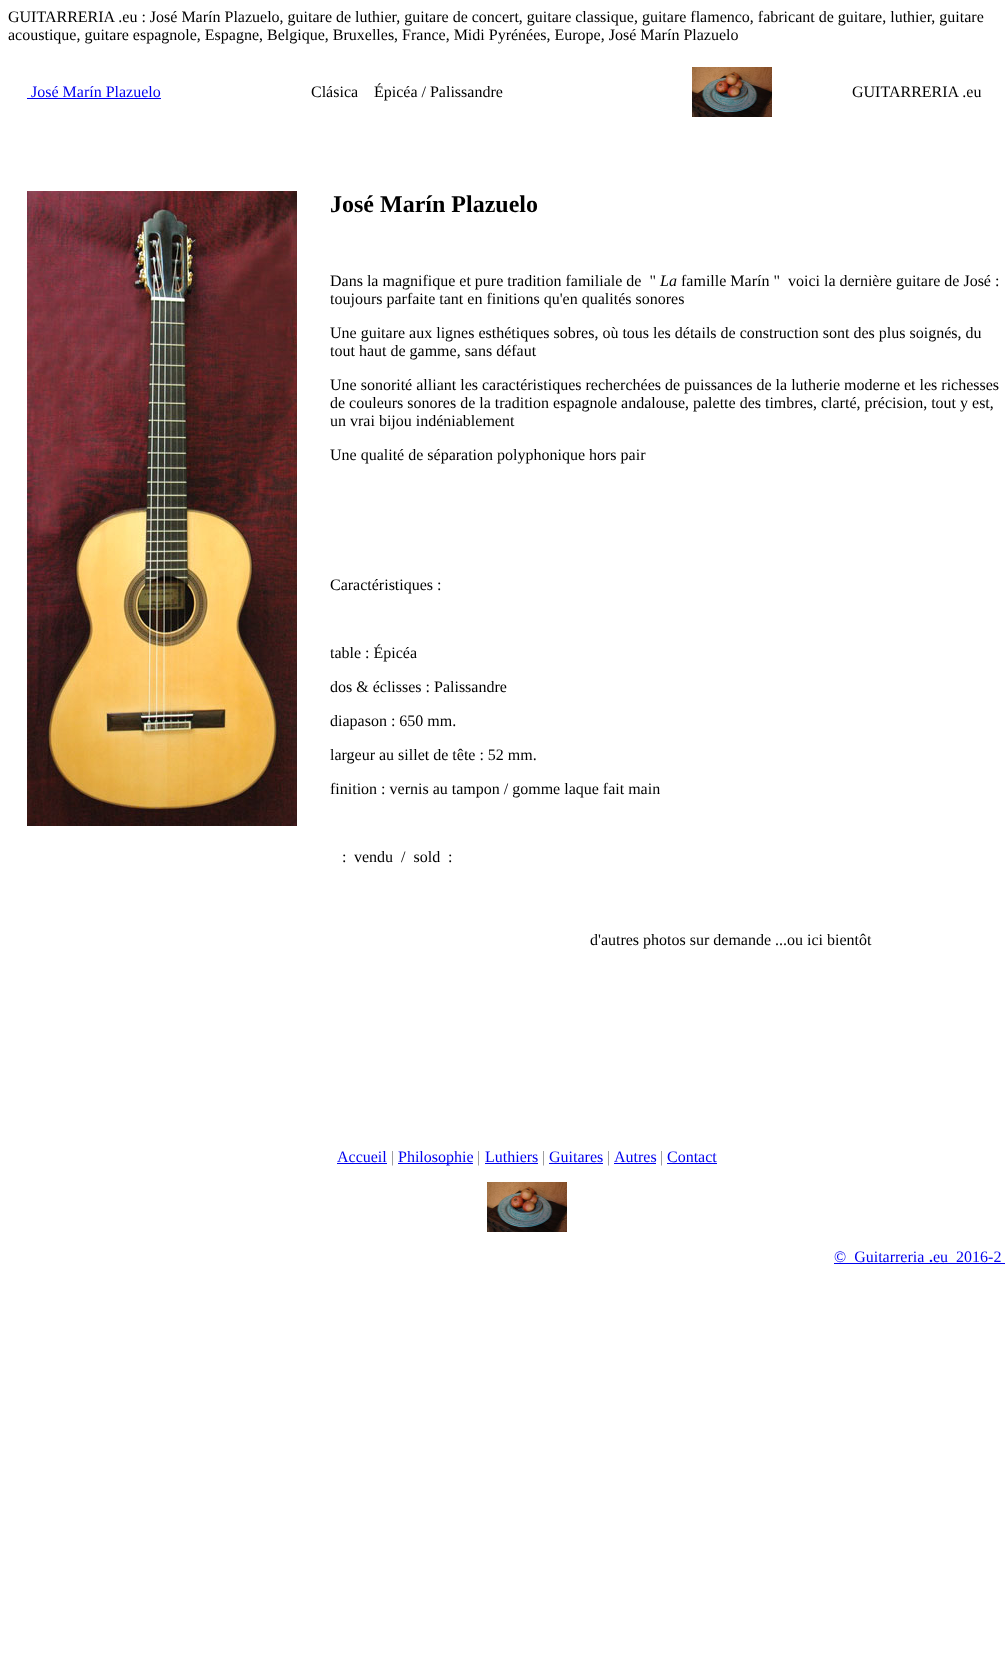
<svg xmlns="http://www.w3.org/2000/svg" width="1005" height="1654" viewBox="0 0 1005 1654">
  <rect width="100%" height="100%" fill="#ffffff"/>
  <text x="8" y="22" font-family="Liberation Serif" font-size="16" fill="#000000">GUITARRERIA .eu : José Marín Plazuelo, guitare de luthier, guitare de concert, guitare classique, guitare flamenco, fabricant de guitare, luthier, guitare</text>
  <text x="8" y="40" font-family="Liberation Serif" font-size="16" fill="#000000">acoustique, guitare espagnole, Espagne, Belgique, Bruxelles, France, Midi Pyrénées, Europe, José Marín Plazuelo</text>
  <text x="31" y="97" font-family="Liberation Serif" font-size="16" fill="#0000ee">José Marín Plazuelo</text>
  <rect x="27" y="98" width="134" height="1" fill="#0000ee"/>
  <text x="311" y="97" font-family="Liberation Serif" font-size="16" fill="#000000">Clásica</text>
  <text x="374" y="97" font-family="Liberation Serif" font-size="16" fill="#000000">Épicéa / Palissandre</text>
  <image x="692" y="67" width="80" height="50" href="img1.png"/>
  <text x="852" y="97" font-family="Liberation Serif" font-size="16" fill="#000000">GUITARRERIA .eu</text>
  <image x="27" y="191" width="270" height="635" href="img2.png"/>
  <text x="330" y="212" font-family="Liberation Serif" font-size="24" font-weight="bold" fill="#000000">José Marín Plazuelo</text>
  <text x="330" y="286" font-family="Liberation Serif" font-size="16" fill="#000000" xml:space="preserve">Dans la magnifique et pure tradition familiale de  "</text>
  <text x="660" y="286" font-family="Liberation Serif" font-size="16" font-style="italic" fill="#000000">La</text>
  <text x="681" y="286" font-family="Liberation Serif" font-size="16" fill="#000000" xml:space="preserve">famille Marín "  voici la dernière guitare de José :</text>
  <text x="330" y="304" font-family="Liberation Serif" font-size="16" fill="#000000">toujours parfaite tant en finitions qu'en qualités sonores</text>
  <text x="330" y="338" font-family="Liberation Serif" font-size="16" fill="#000000">Une guitare aux lignes esthétiques sobres, où tous les détails de construction sont des plus soignés, du</text>
  <text x="330" y="356" font-family="Liberation Serif" font-size="16" fill="#000000">tout haut de gamme, sans défaut</text>
  <text x="330" y="390" font-family="Liberation Serif" font-size="16" fill="#000000">Une sonorité alliant les caractéristiques recherchées de puissances de la lutherie moderne et les richesses</text>
  <text x="330" y="408" font-family="Liberation Serif" font-size="16" fill="#000000">de couleurs sonores de la tradition espagnole andalouse, palette des timbres, clarté, précision, tout y est,</text>
  <text x="330" y="426" font-family="Liberation Serif" font-size="16" fill="#000000">un vrai bijou indéniablement</text>
  <text x="330" y="460" font-family="Liberation Serif" font-size="16" fill="#000000">Une qualité de séparation polyphonique hors pair</text>
  <text x="330" y="590" font-family="Liberation Serif" font-size="16" fill="#000000">Caractéristiques :</text>
  <text x="330" y="658" font-family="Liberation Serif" font-size="16" fill="#000000">table : Épicéa</text>
  <text x="330" y="692" font-family="Liberation Serif" font-size="16" fill="#000000">dos &amp; éclisses : Palissandre</text>
  <text x="330" y="726" font-family="Liberation Serif" font-size="16" fill="#000000">diapason : 650 mm.</text>
  <text x="330" y="760" font-family="Liberation Serif" font-size="16" fill="#000000">largeur au sillet de tête : 52 mm.</text>
  <text x="330" y="794" font-family="Liberation Serif" font-size="16" fill="#000000">finition : vernis au tampon / gomme laque fait main</text>
  <text x="342" y="862" font-family="Liberation Serif" font-size="16" fill="#000000">:</text>
  <text x="354" y="862" font-family="Liberation Serif" font-size="16" fill="#000000" xml:space="preserve">vendu  /  sold</text>
  <text x="448" y="862" font-family="Liberation Serif" font-size="16" fill="#000000">:</text>
  <text x="590" y="945" font-family="Liberation Serif" font-size="16" fill="#000000">d'autres photos sur demande ...ou ici bientôt</text>
  <text x="337" y="1162" font-family="Liberation Serif" font-size="16" fill="#0000ee">Accueil</text>
  <rect x="337" y="1163" width="50" height="1" fill="#0000ee"/>
  <text x="391" y="1162" font-family="Liberation Serif" font-size="16" fill="#888888">|</text>
  <rect x="398" y="1163" width="75" height="1" fill="#0000ee"/>
  <text x="398" y="1162" font-family="Liberation Serif" font-size="16" fill="#0000ee">Philosophie</text>
  <text x="477" y="1162" font-family="Liberation Serif" font-size="16" fill="#888888">|</text>
  <text x="485" y="1162" font-family="Liberation Serif" font-size="16" fill="#0000ee">Luthiers</text>
  <rect x="485" y="1163" width="53" height="1" fill="#0000ee"/>
  <text x="542" y="1162" font-family="Liberation Serif" font-size="16" fill="#888888">|</text>
  <text x="549" y="1162" font-family="Liberation Serif" font-size="16" fill="#0000ee">Guitares</text>
  <rect x="549" y="1163" width="54" height="1" fill="#0000ee"/>
  <text x="607" y="1162" font-family="Liberation Serif" font-size="16" fill="#888888">|</text>
  <text x="614" y="1162" font-family="Liberation Serif" font-size="16" fill="#0000ee">Autres</text>
  <rect x="614" y="1163" width="42" height="1" fill="#0000ee"/>
  <text x="660" y="1162" font-family="Liberation Serif" font-size="16" fill="#888888">|</text>
  <text x="667" y="1162" font-family="Liberation Serif" font-size="16" fill="#0000ee">Contact</text>
  <rect x="667" y="1163" width="50" height="1" fill="#0000ee"/>
  <image x="487" y="1182" width="80" height="50" href="img1.png"/>
  <text x="834" y="1262" font-family="Liberation Serif" font-size="16" fill="#0000ee" xml:space="preserve">©  Guitarreria</text>
  <text x="929" y="1262" font-family="Liberation Serif" font-size="16" font-weight="bold" fill="#0000ee">.</text>
  <rect x="834" y="1263" width="171" height="1" fill="#0000ee"/>
  <text x="933" y="1262" font-family="Liberation Serif" font-size="16" fill="#0000ee" xml:space="preserve">eu  2016-2</text>
</svg>
